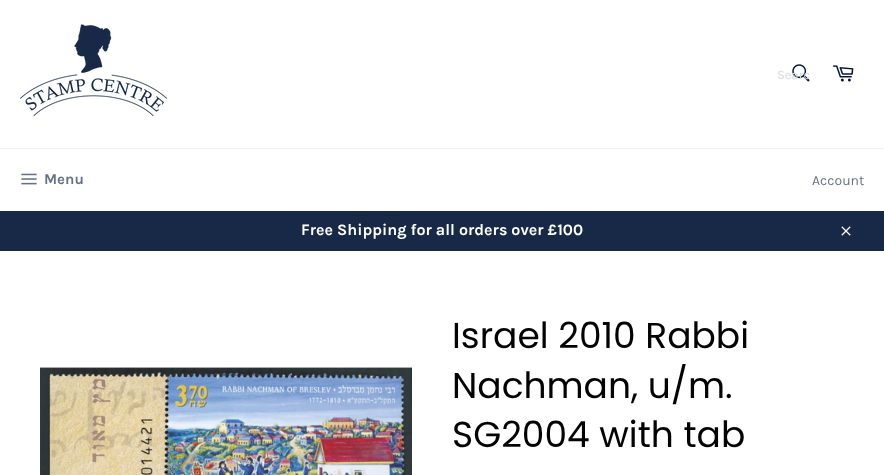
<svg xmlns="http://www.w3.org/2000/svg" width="884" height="475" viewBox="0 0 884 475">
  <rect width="100%" height="100%" fill="#ffffff"/>
  <image x="20" y="24" width="148" height="93" href="img1.png"/>
  <image x="792" y="64" width="18" height="18" href="img2.png"/>
  <text x="777" y="79" font-family="Karla" font-size="13" fill="#d6d9df">Searc</text>
  <image x="832" y="65" width="22" height="17" href="img3.png"/>
  <rect x="0" y="148" width="884" height="1" fill="#f2f2f2"/>
  <image x="21" y="173" width="16" height="12" href="img4.png"/>
  <text x="44" y="184" font-family="Karla" font-size="15" font-weight="bold" fill="#667187">Menu</text>
  <text x="812" y="185" font-family="Karla" font-size="14" fill="#667187">Account</text>
  <rect x="0" y="211" width="884" height="40" fill="#172947"/>
  <text x="301" y="235" font-family="Karla" font-size="16" font-weight="bold" fill="#ffffff">Free Shipping for all orders over £100</text>
  <image x="841" y="226" width="10" height="10" href="img5.png"/>
  <image x="40" y="367" width="372" height="108" href="img6.png"/>
  <text x="452" y="348" font-family="Poppins" font-size="36" fill="#030303">Israel 2010 Rabbi</text>
  <text x="452" y="398" font-family="Poppins" font-size="36" fill="#030303">Nachman, u/m.</text>
  <text x="452" y="447" font-family="Poppins" font-size="36" fill="#030303">SG2004 with tab</text>
</svg>
